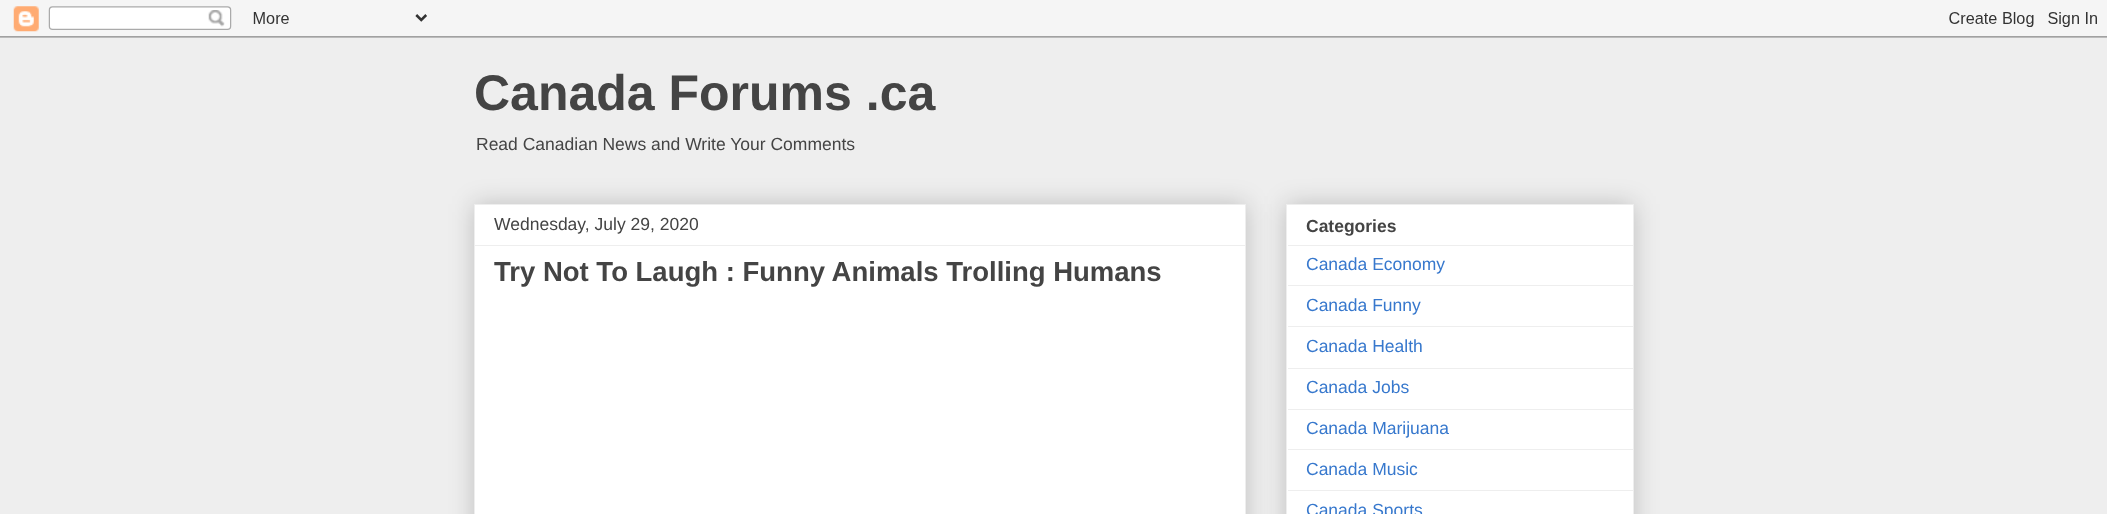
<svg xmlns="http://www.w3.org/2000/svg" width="2107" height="514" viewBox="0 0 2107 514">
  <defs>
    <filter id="blur1" x="-50%" y="-200%" width="200%" height="500%"><feGaussianBlur stdDeviation="12.5"/></filter>
  </defs>
  <rect width="100%" height="100%" fill="#eeeeee"/>
  <image x="0" y="0" width="2107" height="38" href="img1.png"/>
  <text x="474" y="110" font-family="Liberation Sans" font-size="50" font-weight="bold" fill="#444444">Canada Forums .ca</text>
  <text x="476" y="150" font-family="Liberation Sans" font-size="17.5" fill="#444444">Read Canadian News and Write Your Comments</text>
  <rect x="474" y="204" width="772" height="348" fill="#000000" fill-opacity="0.2" filter="url(#blur1)"/>
  <rect x="474.5" y="204.5" width="771" height="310" fill="#ffffff" stroke="#eeeeee"/>
  <text x="494" y="230" font-family="Liberation Sans" font-size="17.5" fill="#444444">Wednesday, July 29, 2020</text>
  <rect x="475" y="245" width="770" height="1" fill="#eeeeee"/>
  <text x="494" y="281" font-family="Liberation Sans" font-size="27.5" font-weight="bold" fill="#444444">Try Not To Laugh : Funny Animals Trolling Humans</text>
  <rect x="1286" y="204" width="348" height="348" fill="#000000" fill-opacity="0.2" filter="url(#blur1)"/>
  <rect x="1286.5" y="204.5" width="347" height="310" fill="#ffffff" stroke="#eeeeee"/>
  <text x="1306" y="232" font-family="Liberation Sans" font-size="17.5" font-weight="bold" fill="#444444">Categories</text>
  <rect x="1288" y="245" width="345" height="1" fill="#eeeeee"/>
  <text x="1306" y="270" font-family="Liberation Sans" font-size="17.5" fill="#3778cd">Canada Economy</text>
  <rect x="1288" y="285" width="345" height="1" fill="#eeeeee"/>
  <text x="1306" y="311" font-family="Liberation Sans" font-size="17.5" fill="#3778cd">Canada Funny</text>
  <rect x="1288" y="326" width="345" height="1" fill="#eeeeee"/>
  <text x="1306" y="352" font-family="Liberation Sans" font-size="17.5" fill="#3778cd">Canada Health</text>
  <rect x="1288" y="368" width="345" height="1" fill="#eeeeee"/>
  <text x="1306" y="393" font-family="Liberation Sans" font-size="17.5" fill="#3778cd">Canada Jobs</text>
  <rect x="1288" y="409" width="345" height="1" fill="#eeeeee"/>
  <text x="1306" y="434" font-family="Liberation Sans" font-size="17.5" fill="#3778cd">Canada Marijuana</text>
  <rect x="1288" y="449" width="345" height="1" fill="#eeeeee"/>
  <text x="1306" y="475" font-family="Liberation Sans" font-size="17.5" fill="#3778cd">Canada Music</text>
  <rect x="1288" y="490" width="345" height="1" fill="#eeeeee"/>
  <text x="1306" y="516" font-family="Liberation Sans" font-size="17.5" fill="#3778cd">Canada Sports</text>
</svg>
